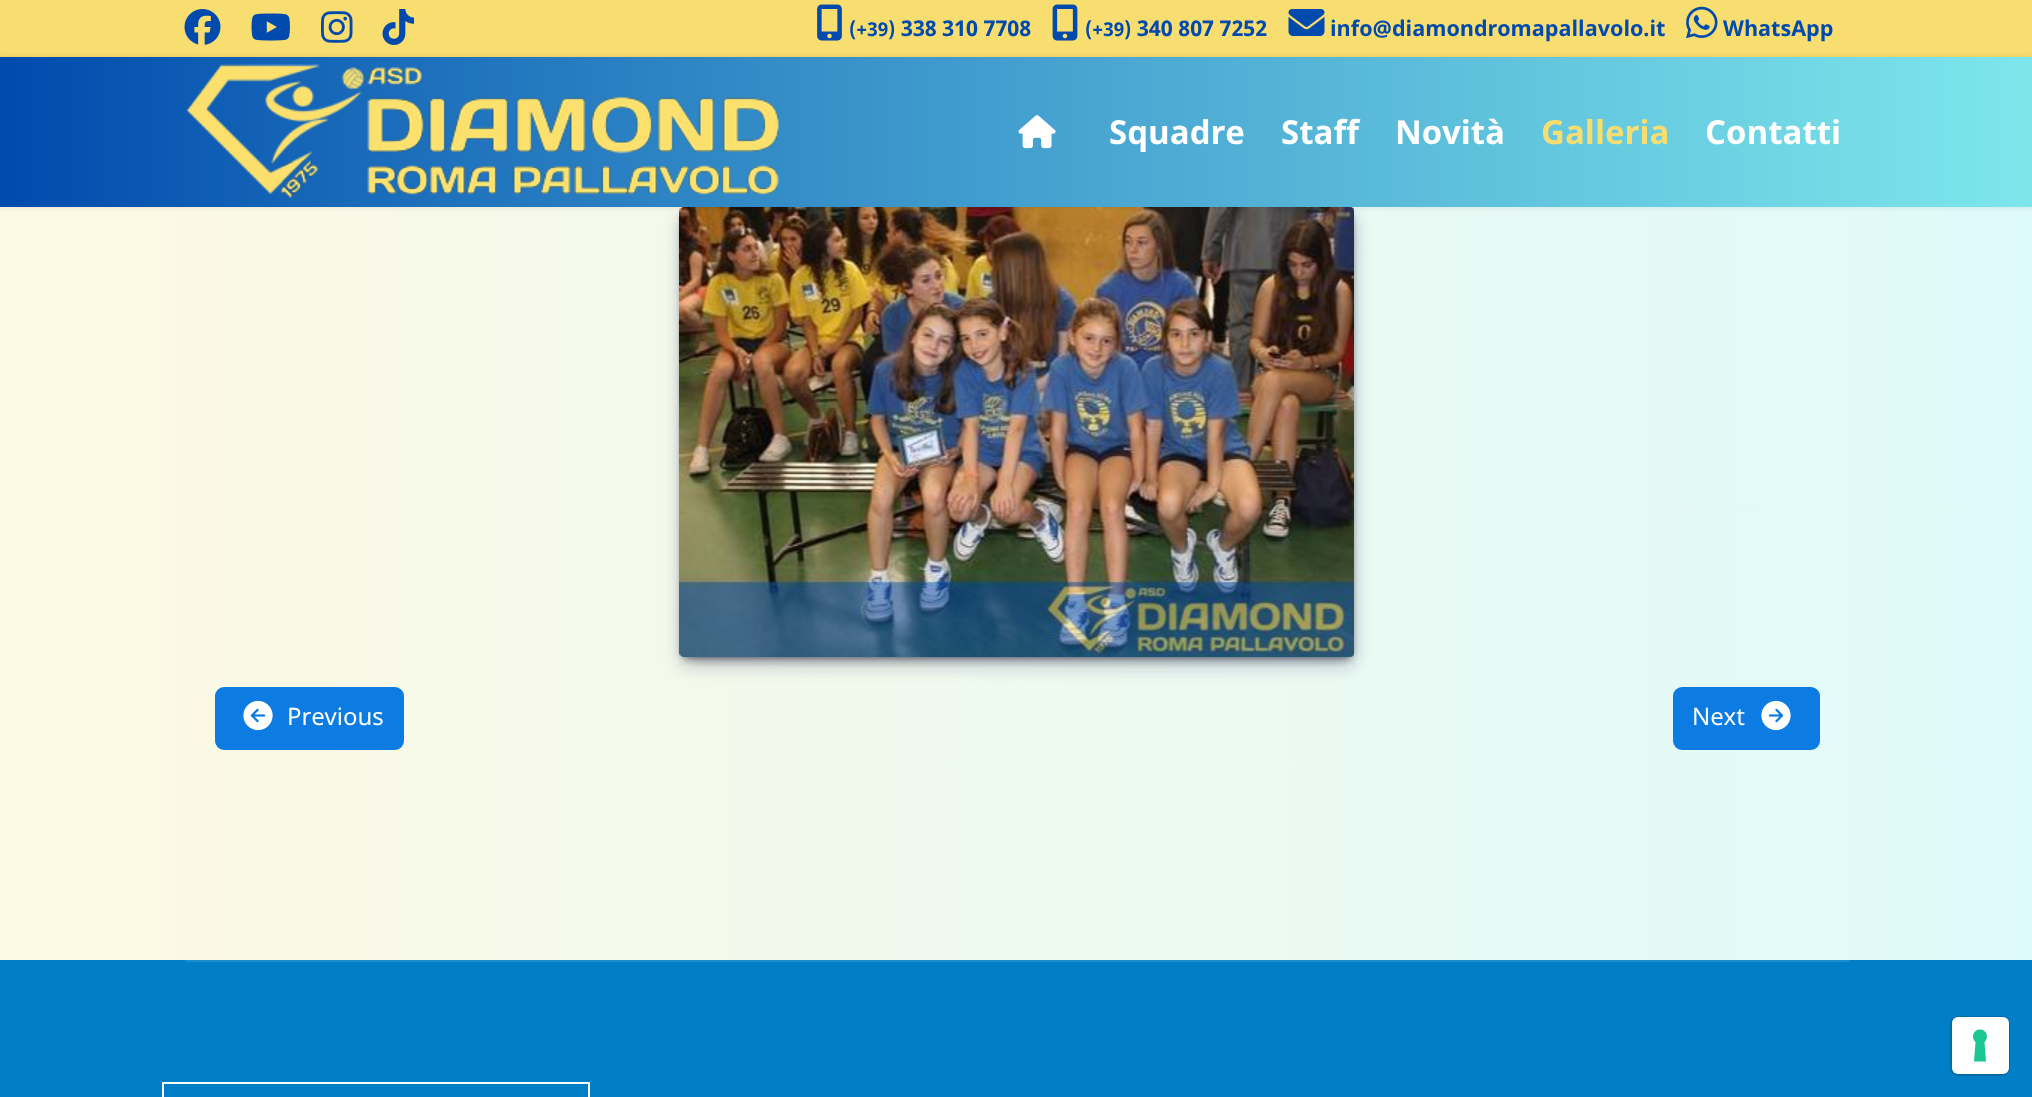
<svg xmlns="http://www.w3.org/2000/svg" width="2032" height="1097" viewBox="0 0 2032 1097">
  <defs>
    <linearGradient id="g1" gradientUnits="userSpaceOnUse" x1="0" y1="584" x2="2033" y2="583"><stop offset="0" stop-color="#fef9e3"/><stop offset="1" stop-color="#dffafb"/></linearGradient>
    <filter id="blur1" x="-50%" y="-200%" width="200%" height="500%"><feGaussianBlur stdDeviation="5"/></filter>
    <filter id="blur2" x="-50%" y="-200%" width="200%" height="500%"><feGaussianBlur stdDeviation="9"/></filter>
    <clipPath id="clip1"><path d="M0 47H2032V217H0ZM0 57H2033V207H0Z" clip-rule="evenodd"/></clipPath>
    <filter id="blur3" x="-50%" y="-200%" width="200%" height="500%"><feGaussianBlur stdDeviation="3"/></filter>
    <linearGradient id="g2" gradientUnits="userSpaceOnUse" x1="0" y1="132" x2="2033" y2="132"><stop offset="0" stop-color="#004aad"/><stop offset="1" stop-color="#5de0e6" stop-opacity="0.8"/></linearGradient>
  </defs>
  <rect width="100%" height="100%" fill="#ffffff"/>
  <rect x="0" y="0" width="2032" height="57" fill="#f8dd70"/>
  <image x="184" y="9" width="37" height="36" href="img1.png"/>
  <image x="251" y="13" width="39" height="28" href="img2.png"/>
  <image x="321" y="11" width="32" height="32" href="img3.png"/>
  <image x="382" y="9" width="32" height="36" href="img4.png"/>
  <image x="817" y="4" width="25" height="37" href="img5.png"/>
  <text x="849" y="36" font-family="Noto Sans" font-size="19" font-weight="bold" fill="#004aad">(+39)</text>
  <text x="901" y="36" font-family="Noto Sans" font-size="21.6" font-weight="bold" fill="#004aad">338 310 7708</text>
  <image x="1052" y="4" width="26" height="37" href="img6.png"/>
  <text x="1085" y="36" font-family="Noto Sans" font-size="19" font-weight="bold" fill="#004aad">(+39)</text>
  <text x="1137" y="36" font-family="Noto Sans" font-size="21.6" font-weight="bold" fill="#004aad">340 807 7252</text>
  <image x="1288" y="9" width="37" height="27" href="img7.png"/>
  <text x="1330" y="36" font-family="Noto Sans" font-size="21.6" font-weight="bold" fill="#004aad">info@diamondromapallavolo.it</text>
  <image x="1686" y="6" width="32" height="33" href="img8.png"/>
  <text x="1723" y="36" font-family="Noto Sans" font-size="21.6" font-weight="bold" fill="#004aad">WhatsApp</text>
  <rect x="0" y="207" width="2032" height="753" fill="url(#g1)"/>
  <rect x="684" y="216" width="666" height="441" fill="#000000" fill-opacity="0.7" filter="url(#blur1)"/>
  <rect x="683" y="219" width="669" height="444" rx="1.5" fill="#32325d" fill-opacity="0.4" filter="url(#blur2)"/>
  <image x="679" y="207" width="675" height="450" href="img11.png"/>
  <g clip-path="url(#clip1)">
    <rect x="0" y="57" width="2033" height="150" fill="#000000" fill-opacity="0.1" filter="url(#blur3)"/>
  </g>
  <rect x="0" y="57" width="2032" height="150" fill="url(#g2)"/>
  <image x="186" y="64" width="593" height="135" href="img9.png"/>
  <image x="1018" y="115" width="38" height="34" href="img10.png"/>
  <text x="1109" y="144" font-family="Noto Sans" font-size="33" font-weight="bold" fill="#ffffff">Squadre</text>
  <text x="1281" y="144" font-family="Noto Sans" font-size="33" font-weight="bold" fill="#ffffff">Staff</text>
  <text x="1395" y="144" font-family="Noto Sans" font-size="33" font-weight="bold" fill="#ffffff">Novità</text>
  <text x="1541" y="144" font-family="Noto Sans" font-size="33" font-weight="bold" fill="#f8dd70">Galleria</text>
  <text x="1705" y="144" font-family="Noto Sans" font-size="33" font-weight="bold" fill="#ffffff">Contatti</text>
  <rect x="216" y="688" width="187" height="61" rx="8" fill="#0c7ce3" stroke="#0c7ce3" stroke-width="2"/>
  <image x="243" y="700" width="30" height="31" href="img12.png"/>
  <text x="287" y="725" font-family="Noto Sans" font-size="24" fill="#ffffff">Previous</text>
  <rect x="1674" y="688" width="145" height="61" rx="8" fill="#0c7ce3" stroke="#0c7ce3" stroke-width="2"/>
  <text x="1692" y="725" font-family="Noto Sans" font-size="24" fill="#ffffff">Next</text>
  <image x="1761" y="700" width="30" height="31" href="img13.png"/>
  <rect x="0" y="960" width="2032" height="137" fill="#007fc6"/>
  <rect x="185" y="960" width="1665" height="2" fill="#1a8ccc"/>
  <rect x="163" y="1083" width="426" height="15" fill="none" stroke="#ffffff" stroke-width="2"/>
  <rect x="1951" y="1017" width="58" height="58" rx="7" fill="none" stroke="#006ca8" stroke-width="2"/>
  <rect x="1952" y="1017" width="57" height="57" rx="6" fill="#ffffff"/>
  <path d="M1980 1029.5C1986.5 1029.5 1989.5 1037.5 1984.5 1042L1986 1061.5H1974L1975.5 1042C1970.5 1037.5 1973.5 1029.5 1980 1029.5Z" fill="#1cc691" fill-rule="evenodd"/>
</svg>
